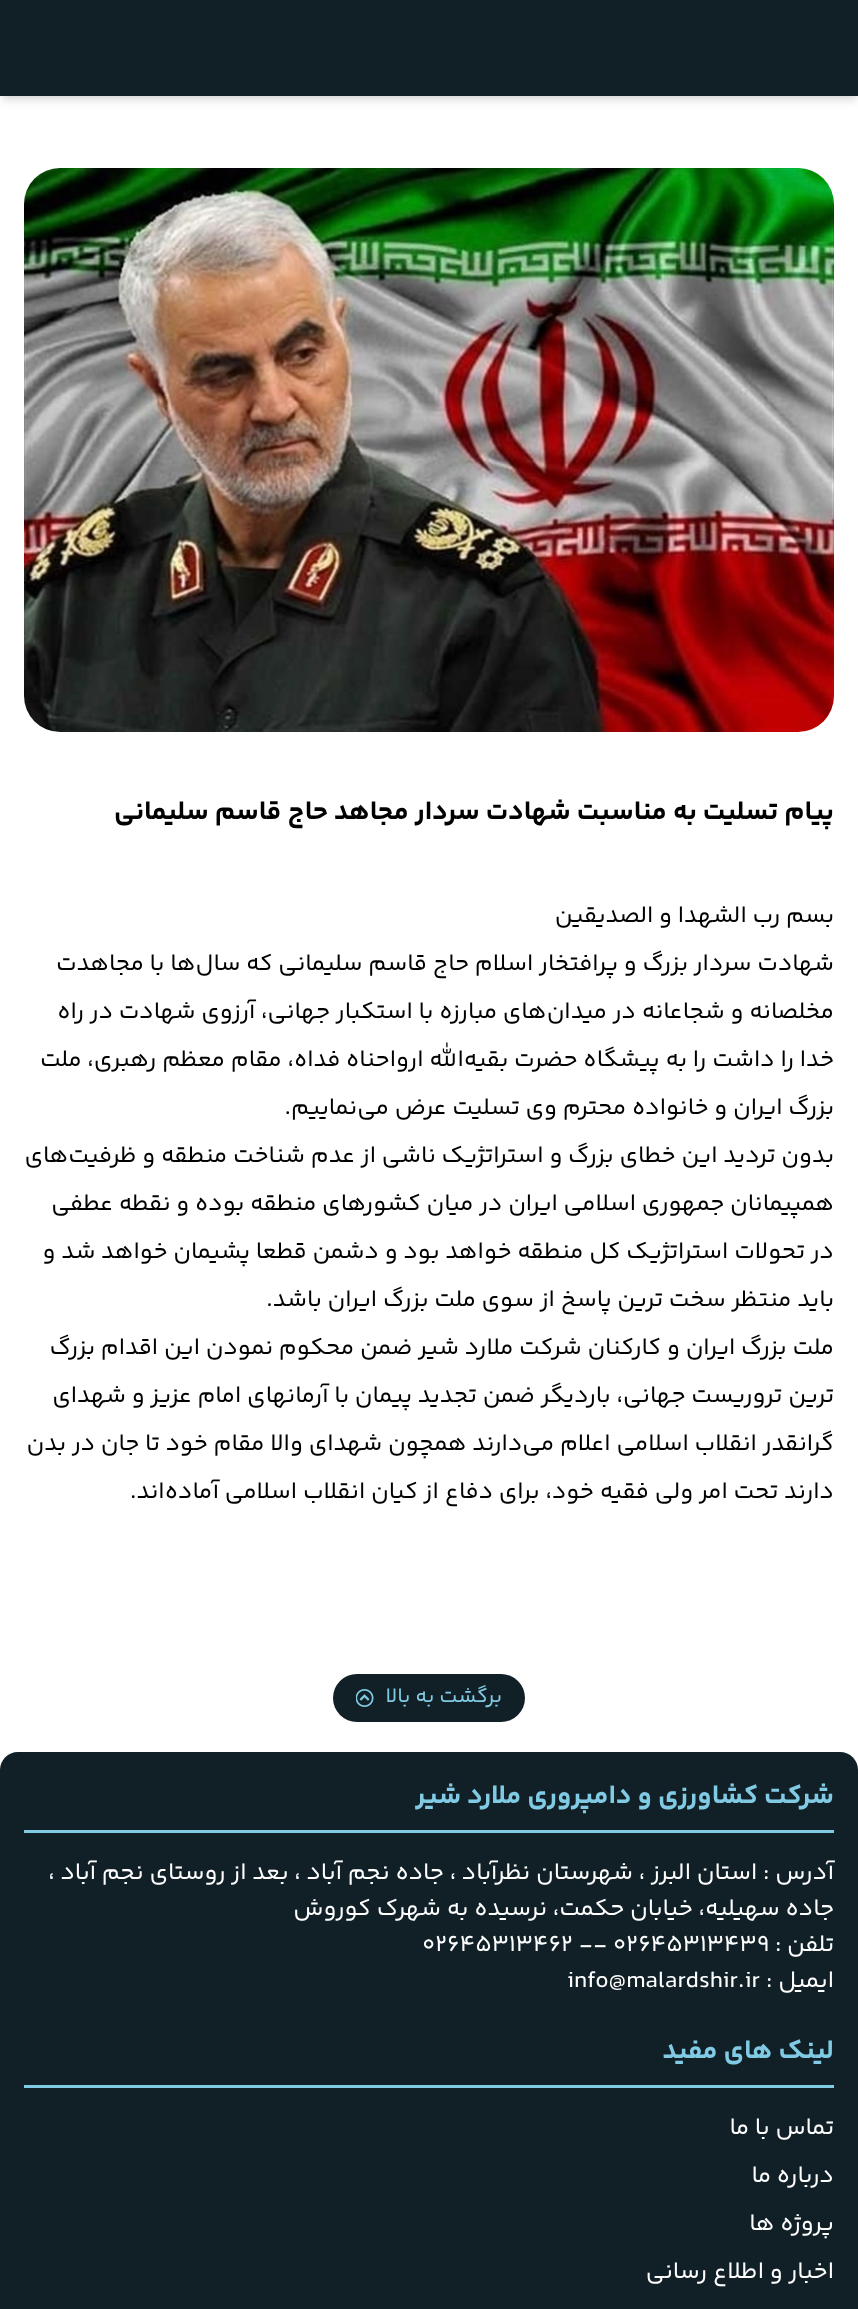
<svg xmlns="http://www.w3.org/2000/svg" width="858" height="2309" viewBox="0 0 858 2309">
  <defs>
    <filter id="blur1" x="-50%" y="-200%" width="200%" height="500%"><feGaussianBlur stdDeviation="3"/></filter>
    <filter id="blur2" x="-50%" y="-200%" width="200%" height="500%"><feGaussianBlur stdDeviation="4.5"/></filter>
  </defs>
  <rect width="100%" height="100%" fill="#ffffff"/>
  <rect x="3" y="6" width="852" height="90" fill="#000000" fill-opacity="0.1" filter="url(#blur1)"/>
  <rect x="2" y="8" width="855" height="93" fill="#000000" fill-opacity="0.1" filter="url(#blur2)"/>
  <rect x="0" y="0" width="858" height="96" fill="#112027"/>
  <image x="24" y="168" width="810" height="564" href="img1.png"/>
  <text x="834" y="819" font-family="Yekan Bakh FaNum" font-size="27" font-weight="bold" direction="rtl" fill="#000000">پیام تسلیت به مناسبت شهادت سردار مجاهد حاج قاسم سلیمانی</text>
  <text x="834" y="922" font-family="Yekan Bakh FaNum" font-size="24" direction="rtl" fill="#000000">بسم رب الشهدا و الصدیقین</text>
  <text x="834" y="970" font-family="Yekan Bakh FaNum" font-size="24" direction="rtl" fill="#000000">شهادت سردار بزرگ و پرافتخار اسلام حاج قاسم سلیمانی که سال‌ها با مجاهدت</text>
  <text x="834" y="1018" font-family="Yekan Bakh FaNum" font-size="24" direction="rtl" fill="#000000">مخلصانه و شجاعانه در میدان‌های مبارزه با استکبار جهانی، آرزوی شهادت در راه</text>
  <text x="834" y="1066" font-family="Yekan Bakh FaNum" font-size="24" direction="rtl" fill="#000000">خدا را داشت را به پیشگاه حضرت بقیه‌الله ‌ارواحناه فداه، مقام معظم رهبری، ملت</text>
  <text x="834" y="1114" font-family="Yekan Bakh FaNum" font-size="24" direction="rtl" fill="#000000">بزرگ ایران و خانواده محترم وی تسلیت عرض می‌نماییم.</text>
  <text x="834" y="1162" font-family="Yekan Bakh FaNum" font-size="24" direction="rtl" fill="#000000">بدون تردید این خطای بزرگ و استراتژیک ناشی از عدم شناخت منطقه و ظرفیت‌های</text>
  <text x="834" y="1210" font-family="Yekan Bakh FaNum" font-size="24" direction="rtl" fill="#000000">همپیمانان جمهوری اسلامی ایران در میان کشورهای منطقه بوده و نقطه عطفی</text>
  <text x="834" y="1258" font-family="Yekan Bakh FaNum" font-size="24" direction="rtl" fill="#000000">در تحولات استراتژیک کل منطقه خواهد بود و دشمن قطعا پشیمان خواهد شد و</text>
  <text x="834" y="1306" font-family="Yekan Bakh FaNum" font-size="24" direction="rtl" fill="#000000">باید منتظر سخت ترین پاسخ از سوی ملت بزرگ ایران باشد.</text>
  <text x="834" y="1354" font-family="Yekan Bakh FaNum" font-size="24" direction="rtl" fill="#000000">ملت بزرگ ایران و کارکنان شرکت ملارد شیر ضمن محکوم نمودن این اقدام بزرگ</text>
  <text x="834" y="1402" font-family="Yekan Bakh FaNum" font-size="24" direction="rtl" fill="#000000">ترین تروریست جهانی، باردیگر ضمن تجدید پیمان با آرمانهای امام عزیز و شهدای</text>
  <text x="834" y="1450" font-family="Yekan Bakh FaNum" font-size="24" direction="rtl" fill="#000000">گرانقدر انقلاب اسلامی اعلام می‌دارند همچون شهدای والا مقام خود تا جان در بدن</text>
  <text x="834" y="1498" font-family="Yekan Bakh FaNum" font-size="24" direction="rtl" fill="#000000">دارند تحت امر ولی فقیه خود، برای دفاع از کیان انقلاب اسلامی آماده‌اند.</text>
  <rect x="333" y="1674" width="192" height="48" rx="24" fill="#112027"/>
  <text x="502" y="1702" font-family="Yekan Bakh FaNum" font-size="21" direction="rtl" fill="#81cae3">برگشت به بالا</text>
  <image x="356" y="1689" width="18" height="18" href="img2.png"/>
  <path d="M18 1752H840C850 1752 858 1760 858 1770V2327H0V1770C0 1760 8 1752 18 1752Z" fill="#112027"/>
  <rect x="24" y="1830" width="810" height="3" fill="#81cae3"/>
  <text x="834" y="1803" font-family="Yekan Bakh FaNum" font-size="27" font-weight="bold" direction="rtl" fill="#81cae3">شرکت کشاورزی و دامپروری ملارد شیر</text>
  <text x="834" y="1879" font-family="Yekan Bakh FaNum" font-size="24" direction="rtl" fill="#ffffff">آدرس : استان البرز ، شهرستان نظرآباد ، جاده نجم آباد ، بعد از روستای نجم آباد ،</text>
  <text x="834" y="1915" font-family="Yekan Bakh FaNum" font-size="24" direction="rtl" fill="#ffffff">جاده سهیلیه، خیابان حکمت، نرسیده به شهرک کوروش</text>
  <text x="834" y="1951" font-family="Yekan Bakh FaNum" font-size="24" direction="rtl" fill="#ffffff">تلفن :</text>
  <text x="422" y="1951" font-family="Yekan Bakh FaNum" font-size="24" fill="#ffffff">02645313462 -- 02645313439</text>
  <text x="834" y="1987" font-family="Yekan Bakh FaNum" font-size="24" direction="rtl" fill="#ffffff">ایمیل :</text>
  <text x="567" y="1987" font-family="Yekan Bakh FaNum" font-size="24" fill="#ffffff">info@malardshir.ir</text>
  <rect x="24" y="2085" width="810" height="3" fill="#81cae3"/>
  <text x="834" y="2058" font-family="Yekan Bakh FaNum" font-size="27" font-weight="bold" direction="rtl" fill="#81cae3">لینک های مفید</text>
  <text x="834" y="2134" font-family="Yekan Bakh FaNum" font-size="24" direction="rtl" fill="#ffffff">تماس‌ با‌ ما</text>
  <text x="834" y="2182" font-family="Yekan Bakh FaNum" font-size="24" direction="rtl" fill="#ffffff">درباره ما</text>
  <text x="834" y="2230" font-family="Yekan Bakh FaNum" font-size="24" direction="rtl" fill="#ffffff">پروژه ها</text>
  <text x="834" y="2278" font-family="Yekan Bakh FaNum" font-size="24" direction="rtl" fill="#ffffff">اخبار و اطلاع رسانی</text>
</svg>
